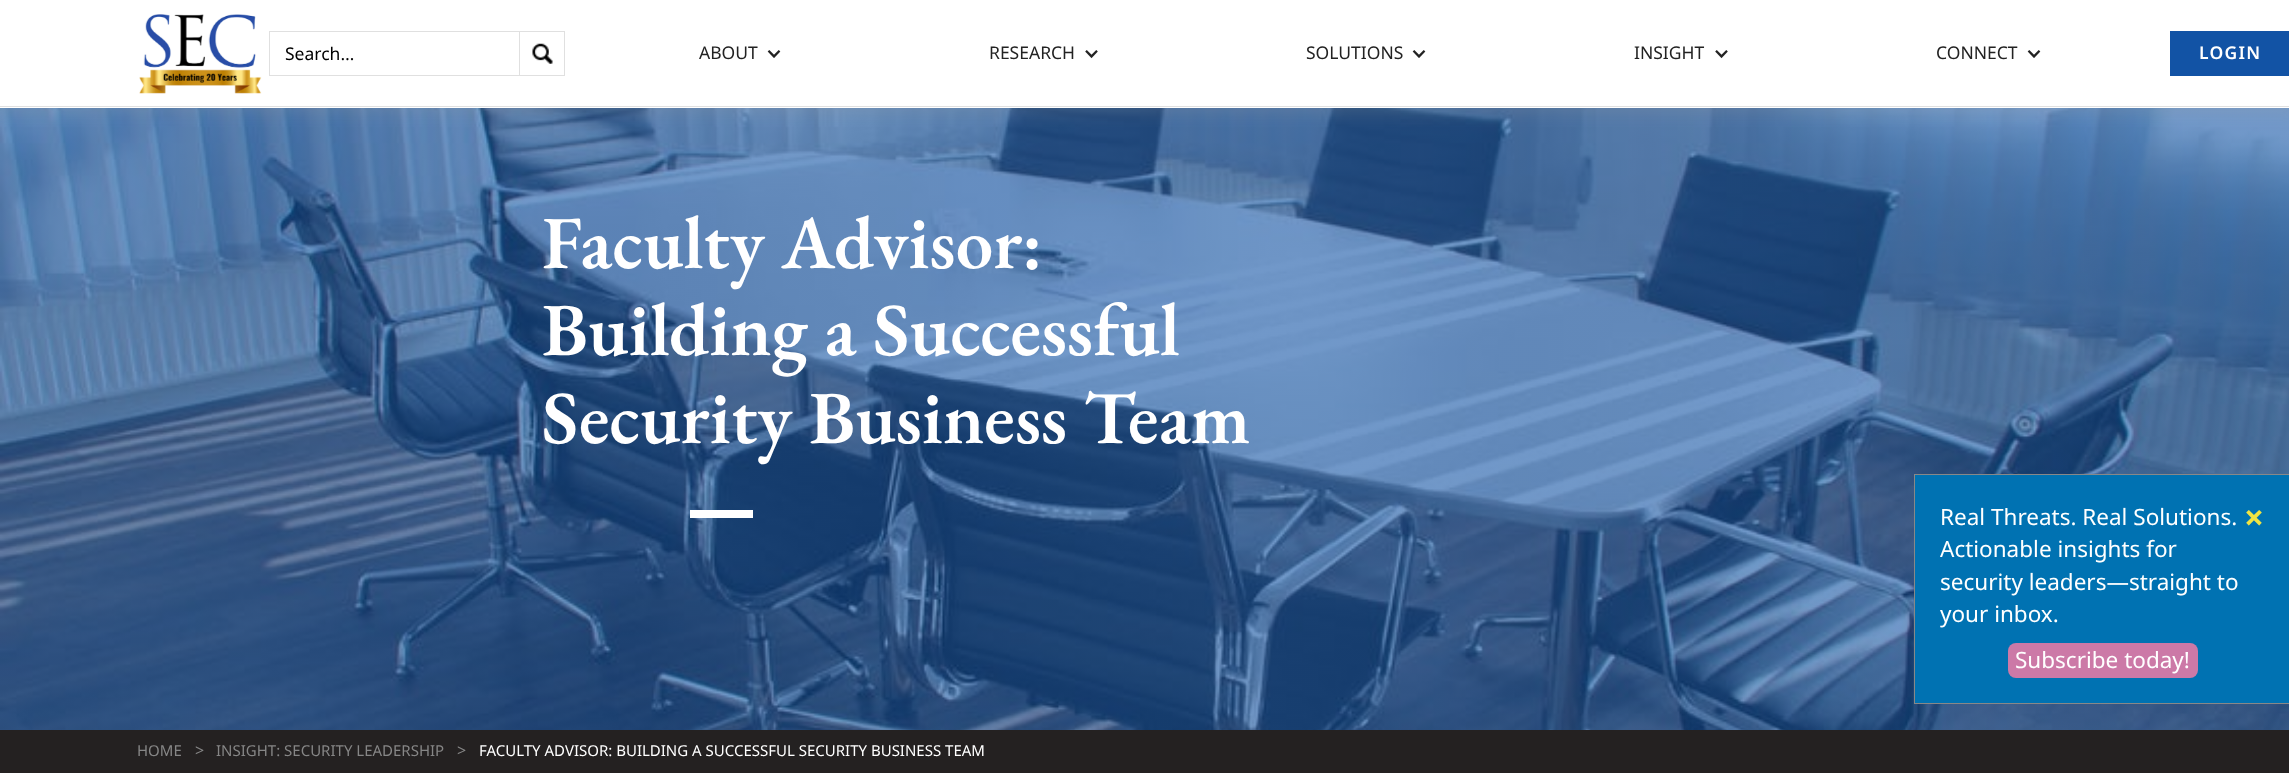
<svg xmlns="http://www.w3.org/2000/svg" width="2289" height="773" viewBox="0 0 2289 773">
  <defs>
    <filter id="blur1" x="-50%" y="-200%" width="200%" height="500%"><feGaussianBlur stdDeviation="7.5"/></filter>
  </defs>
  <rect width="100%" height="100%" fill="#ffffff"/>
  <image x="0" y="108" width="2289" height="622" href="img5.png"/>
  <rect x="-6" y="-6" width="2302" height="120" fill="#9d9d9d" fill-opacity="0.2" filter="url(#blur1)"/>
  <rect x="0" y="0" width="2289" height="108" fill="#ffffff"/>
  <rect x="0" y="106" width="2289" height="1" fill="#e0e0e0"/>
  <image x="139" y="14" width="123" height="80" href="img1.png"/>
  <rect x="269.5" y="31.5" width="250" height="44" fill="none" stroke="#e0e0e0"/>
  <text x="285" y="60" font-family="Noto Sans" font-size="17.5" fill="#000000">Search…</text>
  <image x="532" y="43" width="21" height="21" href="img2.png"/>
  <rect x="520" y="31" width="45" height="1" fill="#e0e0e0"/>
  <rect x="564" y="31" width="1" height="45" fill="#e0e0e0"/>
  <rect x="520" y="75" width="45" height="1" fill="#e0e0e0"/>
  <text x="699" y="59" font-family="Noto Sans" font-size="17.5" fill="#222222">ABOUT</text>
  <image x="767" y="50" width="14" height="8" href="img3.png"/>
  <text x="989" y="59" font-family="Noto Sans" font-size="17.5" fill="#222222">RESEARCH</text>
  <image x="1085" y="50" width="13" height="9" href="img4.png"/>
  <text x="1306" y="59" font-family="Noto Sans" font-size="17.5" fill="#222222">SOLUTIONS</text>
  <image x="1412" y="50" width="14" height="8" href="img3.png"/>
  <text x="1634" y="59" font-family="Noto Sans" font-size="17.5" fill="#222222">INSIGHT</text>
  <image x="1715" y="50" width="13" height="9" href="img4.png"/>
  <text x="1936" y="59" font-family="Noto Sans" font-size="17.5" fill="#222222">CONNECT</text>
  <image x="2027" y="50" width="14" height="8" href="img3.png"/>
  <rect x="2170" y="31" width="119" height="45" fill="#1253a5"/>
  <text x="2199" y="59" font-family="Noto Sans" font-size="17.5" font-weight="600" letter-spacing="1.25" fill="#ffffff">LOGIN</text>
  <text x="542" y="268" font-family="EB Garamond" font-size="75" font-weight="600" fill="#ffffff">Faculty Advisor:</text>
  <text x="542" y="355" font-family="EB Garamond" font-size="75" font-weight="600" fill="#ffffff">Building a Successful</text>
  <text x="542" y="443" font-family="EB Garamond" font-size="75" font-weight="600" fill="#ffffff">Security Business Team</text>
  <rect x="690" y="510" width="63" height="8" fill="#ffffff"/>
  <rect x="1914.5" y="474.5" width="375" height="229" fill="#0072b2" stroke="#888888"/>
  <text x="1940" y="525" font-family="Noto Sans" font-size="22.5" fill="#ffffff">Real Threats. Real Solutions.</text>
  <text x="1940" y="557" font-family="Noto Sans" font-size="22.5" fill="#ffffff">Actionable insights for</text>
  <text x="1940" y="590" font-family="Noto Sans" font-size="22.5" fill="#ffffff">security leaders—straight to</text>
  <text x="1940" y="622" font-family="Noto Sans" font-size="22.5" fill="#ffffff">your inbox.</text>
  <text x="2244" y="530" font-family="Noto Sans" font-size="35" font-weight="bold" fill="#f0e442">×</text>
  <rect x="2008" y="643" width="190" height="35" rx="8" fill="#cc79a7"/>
  <text x="2015" y="668" font-family="Noto Sans" font-size="22.5" fill="#ffffff">Subscribe today!</text>
  <rect x="0" y="730" width="2289" height="43" fill="#242121"/>
  <text x="137" y="756" font-family="Noto Sans" font-size="15" fill="#868686">HOME</text>
  <text x="195" y="756" font-family="Noto Sans" font-size="16" fill="#868686">&gt;</text>
  <text x="216" y="756" font-family="Noto Sans" font-size="15" fill="#868686">INSIGHT: SECURITY LEADERSHIP</text>
  <text x="457" y="756" font-family="Noto Sans" font-size="16" fill="#868686">&gt;</text>
  <text x="479" y="756" font-family="Noto Sans" font-size="15" fill="#ffffff">FACULTY ADVISOR: BUILDING A SUCCESSFUL SECURITY BUSINESS TEAM</text>
</svg>
